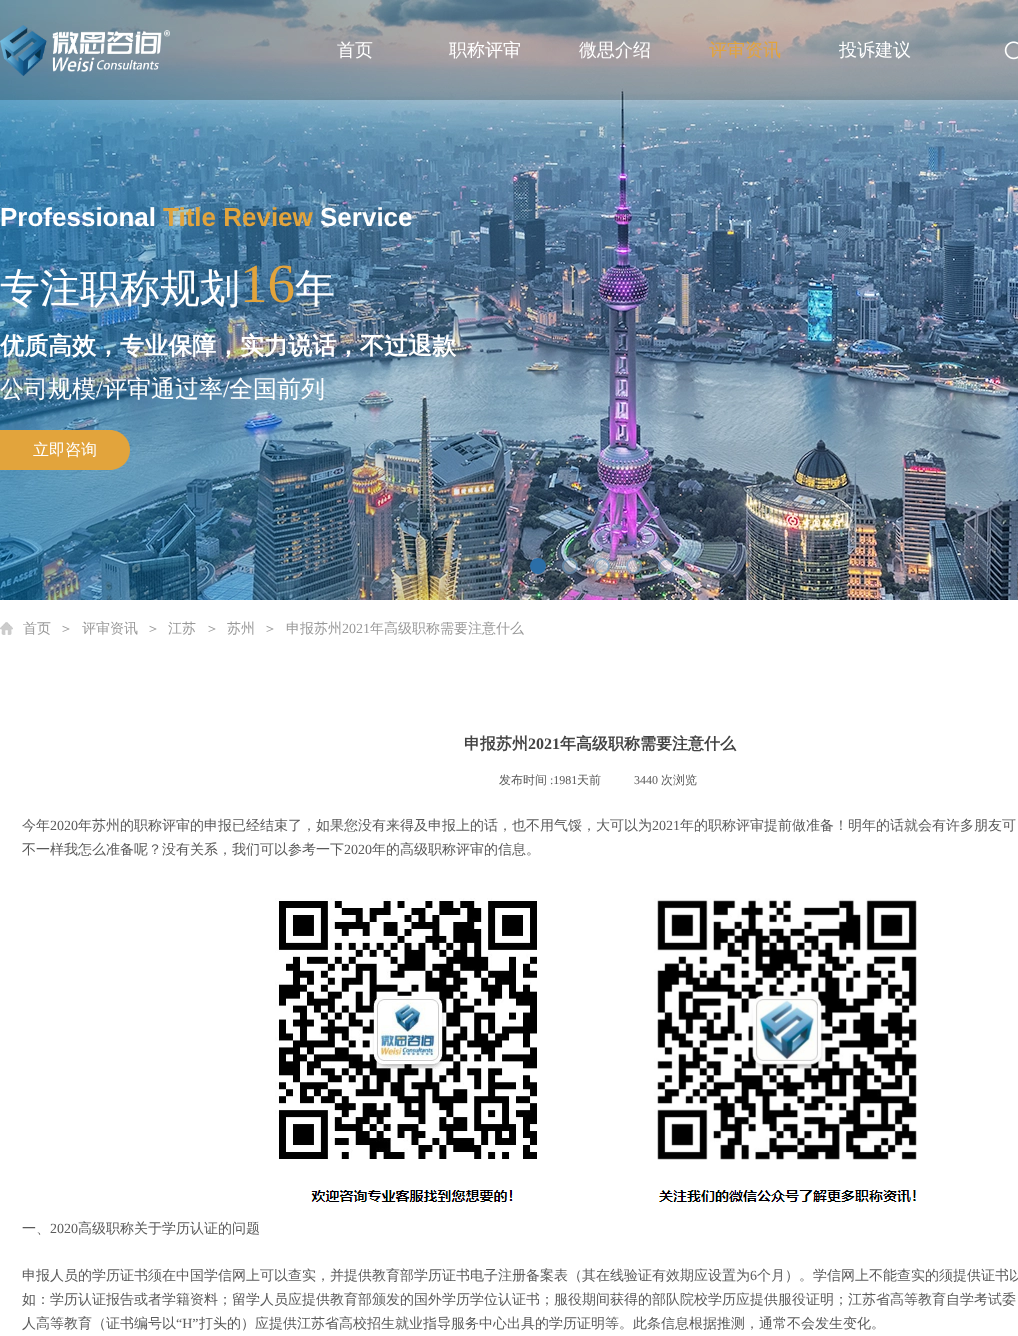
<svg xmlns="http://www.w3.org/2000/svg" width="1018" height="1336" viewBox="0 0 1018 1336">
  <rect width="100%" height="100%" fill="#ffffff"/>
  <image x="0" y="0" width="1018" height="600" href="img1.png"/>
  <circle cx="538" cy="566" r="7" fill="#2b6ea7" stroke="#2b6ea7" stroke-width="2"/>
  <circle cx="570" cy="566" r="8" fill="#ffffff" fill-opacity="0.4"/>
  <circle cx="570" cy="566" r="7" fill="none" stroke="#2b6ea7" stroke-opacity="0.4" stroke-width="2"/>
  <circle cx="602" cy="566" r="8" fill="#ffffff" fill-opacity="0.4"/>
  <circle cx="602" cy="566" r="7" fill="none" stroke="#2b6ea7" stroke-opacity="0.4" stroke-width="2"/>
  <circle cx="634" cy="566" r="8" fill="#ffffff" fill-opacity="0.4"/>
  <circle cx="634" cy="566" r="7" fill="none" stroke="#2b6ea7" stroke-opacity="0.4" stroke-width="2"/>
  <circle cx="666" cy="566" r="8" fill="#ffffff" fill-opacity="0.4"/>
  <circle cx="666" cy="566" r="7" fill="none" stroke="#2b6ea7" stroke-opacity="0.4" stroke-width="2"/>
  <rect x="0" y="0" width="1018" height="100" fill="#000000" fill-opacity="0.2"/>
  <image x="0" y="25" width="170" height="51" href="img2.png"/>
  <text x="337" y="56" font-family="WenQuanYi Zen Hei" font-size="18" font-weight="500" fill="#ffffff">首页</text>
  <text x="449" y="56" font-family="WenQuanYi Zen Hei" font-size="18" font-weight="500" fill="#ffffff">职称评审</text>
  <text x="579" y="56" font-family="WenQuanYi Zen Hei" font-size="18" font-weight="500" fill="#ffffff">微思介绍</text>
  <text x="709" y="56" font-family="WenQuanYi Zen Hei" font-size="18" font-weight="500" fill="#e2a43c">评审资讯</text>
  <text x="839" y="56" font-family="WenQuanYi Zen Hei" font-size="18" font-weight="500" fill="#ffffff">投诉建议</text>
  <image x="1004" y="41" width="14" height="19" href="img3.png"/>
  <text x="0" y="226" font-family="Liberation Sans" font-size="26" font-weight="bold" fill="#ffffff">Professional</text>
  <text x="163" y="226" font-family="Liberation Sans" font-size="26" font-weight="bold" fill="#e2a43c">Title Review</text>
  <text x="320" y="226" font-family="Liberation Sans" font-size="26" font-weight="bold" fill="#ffffff">Service</text>
  <text x="0" y="302" font-family="WenQuanYi Zen Hei" font-size="40" font-weight="500" fill="#ffffff">专注职称规划</text>
  <text x="240" y="302" font-family="Liberation Serif" font-size="55" fill="#e2a43c">16</text>
  <text x="295" y="302" font-family="WenQuanYi Zen Hei" font-size="40" font-weight="500" fill="#ffffff">年</text>
  <text x="0" y="354" font-family="WenQuanYi Zen Hei" font-size="24" font-weight="bold" fill="#ffffff">优质高效，专业保障，实力说话，不过退款</text>
  <text x="0" y="397" font-family="WenQuanYi Zen Hei" font-size="24" font-weight="500" fill="#ffffff">公司规模</text>
  <text x="96" y="397" font-family="Liberation Serif" font-size="24" fill="#ffffff">/</text>
  <text x="103" y="397" font-family="WenQuanYi Zen Hei" font-size="24" font-weight="500" fill="#ffffff">评审通过率</text>
  <text x="223" y="397" font-family="Liberation Serif" font-size="24" fill="#ffffff">/</text>
  <text x="229" y="397" font-family="WenQuanYi Zen Hei" font-size="24" font-weight="500" fill="#ffffff">全国前列</text>
  <path d="M0 430H110C121 430 130 439 130 450C130 461 121 470 110 470H0Z" fill="#e2a43c"/>
  <text x="33" y="455" font-family="WenQuanYi Zen Hei" font-size="16" font-weight="500" fill="#ffffff">立即咨询</text>
  <image x="0" y="622" width="13" height="13" href="img4.png"/>
  <text x="23" y="633" font-family="WenQuanYi Zen Hei" font-size="14" font-weight="500" fill="#999999">首页</text>
  <text x="59" y="633" font-family="WenQuanYi Zen Hei" font-size="14" font-weight="500" fill="#999999">＞</text>
  <text x="82" y="633" font-family="WenQuanYi Zen Hei" font-size="14" font-weight="500" fill="#999999">评审资讯</text>
  <text x="146" y="633" font-family="WenQuanYi Zen Hei" font-size="14" font-weight="500" fill="#999999">＞</text>
  <text x="168" y="633" font-family="WenQuanYi Zen Hei" font-size="14" font-weight="500" fill="#999999">江苏</text>
  <text x="205" y="633" font-family="WenQuanYi Zen Hei" font-size="14" font-weight="500" fill="#999999">＞</text>
  <text x="227" y="633" font-family="WenQuanYi Zen Hei" font-size="14" font-weight="500" fill="#999999">苏州</text>
  <text x="263" y="633" font-family="WenQuanYi Zen Hei" font-size="14" font-weight="500" fill="#999999">＞</text>
  <text x="286" y="633" font-family="WenQuanYi Zen Hei" font-size="14" font-weight="500" fill="#999999">申报苏州</text>
  <text x="342" y="633" font-family="Liberation Serif" font-size="14" fill="#999999">2021</text>
  <text x="370" y="633" font-family="WenQuanYi Zen Hei" font-size="14" font-weight="500" fill="#999999">年高级职称需要注意什么</text>
  <text x="464" y="749" font-family="WenQuanYi Zen Hei" font-size="16" font-weight="bold" fill="#434343">申报苏州</text>
  <text x="528" y="749" font-family="Liberation Serif" font-size="16" font-weight="bold" fill="#434343">2021</text>
  <text x="560" y="749" font-family="WenQuanYi Zen Hei" font-size="16" font-weight="bold" fill="#434343">年高级职称需要注意什么</text>
  <text x="499" y="784" font-family="WenQuanYi Zen Hei" font-size="12" font-weight="500" fill="#5a5a5a">发布时间</text>
  <text x="550" y="784" font-family="Liberation Serif" font-size="12" fill="#5a5a5a">:1981</text>
  <text x="577" y="784" font-family="WenQuanYi Zen Hei" font-size="12" font-weight="500" fill="#5a5a5a">天前</text>
  <text x="634" y="784" font-family="Liberation Serif" font-size="12" fill="#5a5a5a">3440</text>
  <text x="661" y="784" font-family="WenQuanYi Zen Hei" font-size="12" font-weight="500" fill="#5a5a5a">次浏览</text>
  <text x="22" y="830" font-family="WenQuanYi Zen Hei" font-size="14" font-weight="500" fill="#5a5a5a">今年</text>
  <text x="50" y="830" font-family="Liberation Serif" font-size="14" fill="#5a5a5a">2020</text>
  <text x="78" y="830" font-family="WenQuanYi Zen Hei" font-size="14" font-weight="500" fill="#5a5a5a">年苏州的职称评审的申报已经结束了，如果您没有来得及申报上的话，也不用气馁，大可以为</text>
  <text x="652" y="830" font-family="Liberation Serif" font-size="14" fill="#5a5a5a">2021</text>
  <text x="680" y="830" font-family="WenQuanYi Zen Hei" font-size="14" font-weight="500" fill="#5a5a5a">年的职称评审提前做准备！明年的话就会有许多朋友可</text>
  <text x="22" y="854" font-family="WenQuanYi Zen Hei" font-size="14" font-weight="500" fill="#5a5a5a">不一样我怎么准备呢？没有关系，我们可以参考一下</text>
  <text x="344" y="854" font-family="Liberation Serif" font-size="14" fill="#5a5a5a">2020</text>
  <text x="372" y="854" font-family="WenQuanYi Zen Hei" font-size="14" font-weight="500" fill="#5a5a5a">年的高级职称评审的信息。</text>
  <image x="275" y="898" width="642" height="304" href="img5.png"/>
  <text x="22" y="1233" font-family="WenQuanYi Zen Hei" font-size="14" font-weight="500" fill="#5a5a5a">一、</text>
  <text x="50" y="1233" font-family="Liberation Serif" font-size="14" fill="#5a5a5a">2020</text>
  <text x="78" y="1233" font-family="WenQuanYi Zen Hei" font-size="14" font-weight="500" fill="#5a5a5a">高级职称关于学历认证的问题</text>
  <text x="22" y="1280" font-family="WenQuanYi Zen Hei" font-size="14" font-weight="500" fill="#5a5a5a">申报人员的学历证书须在中国学信网上可以查实，并提供教育部学历证书电子注册备案表（其在线验证有效期应设置为</text>
  <text x="750" y="1280" font-family="Liberation Serif" font-size="14" fill="#5a5a5a">6</text>
  <text x="757" y="1280" font-family="WenQuanYi Zen Hei" font-size="14" font-weight="500" fill="#5a5a5a">个月）。学信网上不能查实的须提供证书以</text>
  <text x="22" y="1304" font-family="WenQuanYi Zen Hei" font-size="14" font-weight="500" fill="#5a5a5a">如：学历认证报告或者学籍资料；留学人员应提供教育部颁发的国外学历学位认证书；服役期间获得的部队院校学历应提供服役证明；江苏省高等教育自学考试委</text>
  <text x="22" y="1328" font-family="WenQuanYi Zen Hei" font-size="14" font-weight="500" fill="#5a5a5a">人高等教育（证书编号以</text>
  <text x="176" y="1328" font-family="Liberation Serif" font-size="14" fill="#5a5a5a">“H”</text>
  <text x="199" y="1328" font-family="WenQuanYi Zen Hei" font-size="14" font-weight="500" fill="#5a5a5a">打头的）应提供江苏省高校招生就业指导服务中心出具的学历证明等。此条信息根据推测，通常不会发生变化。</text>
</svg>
